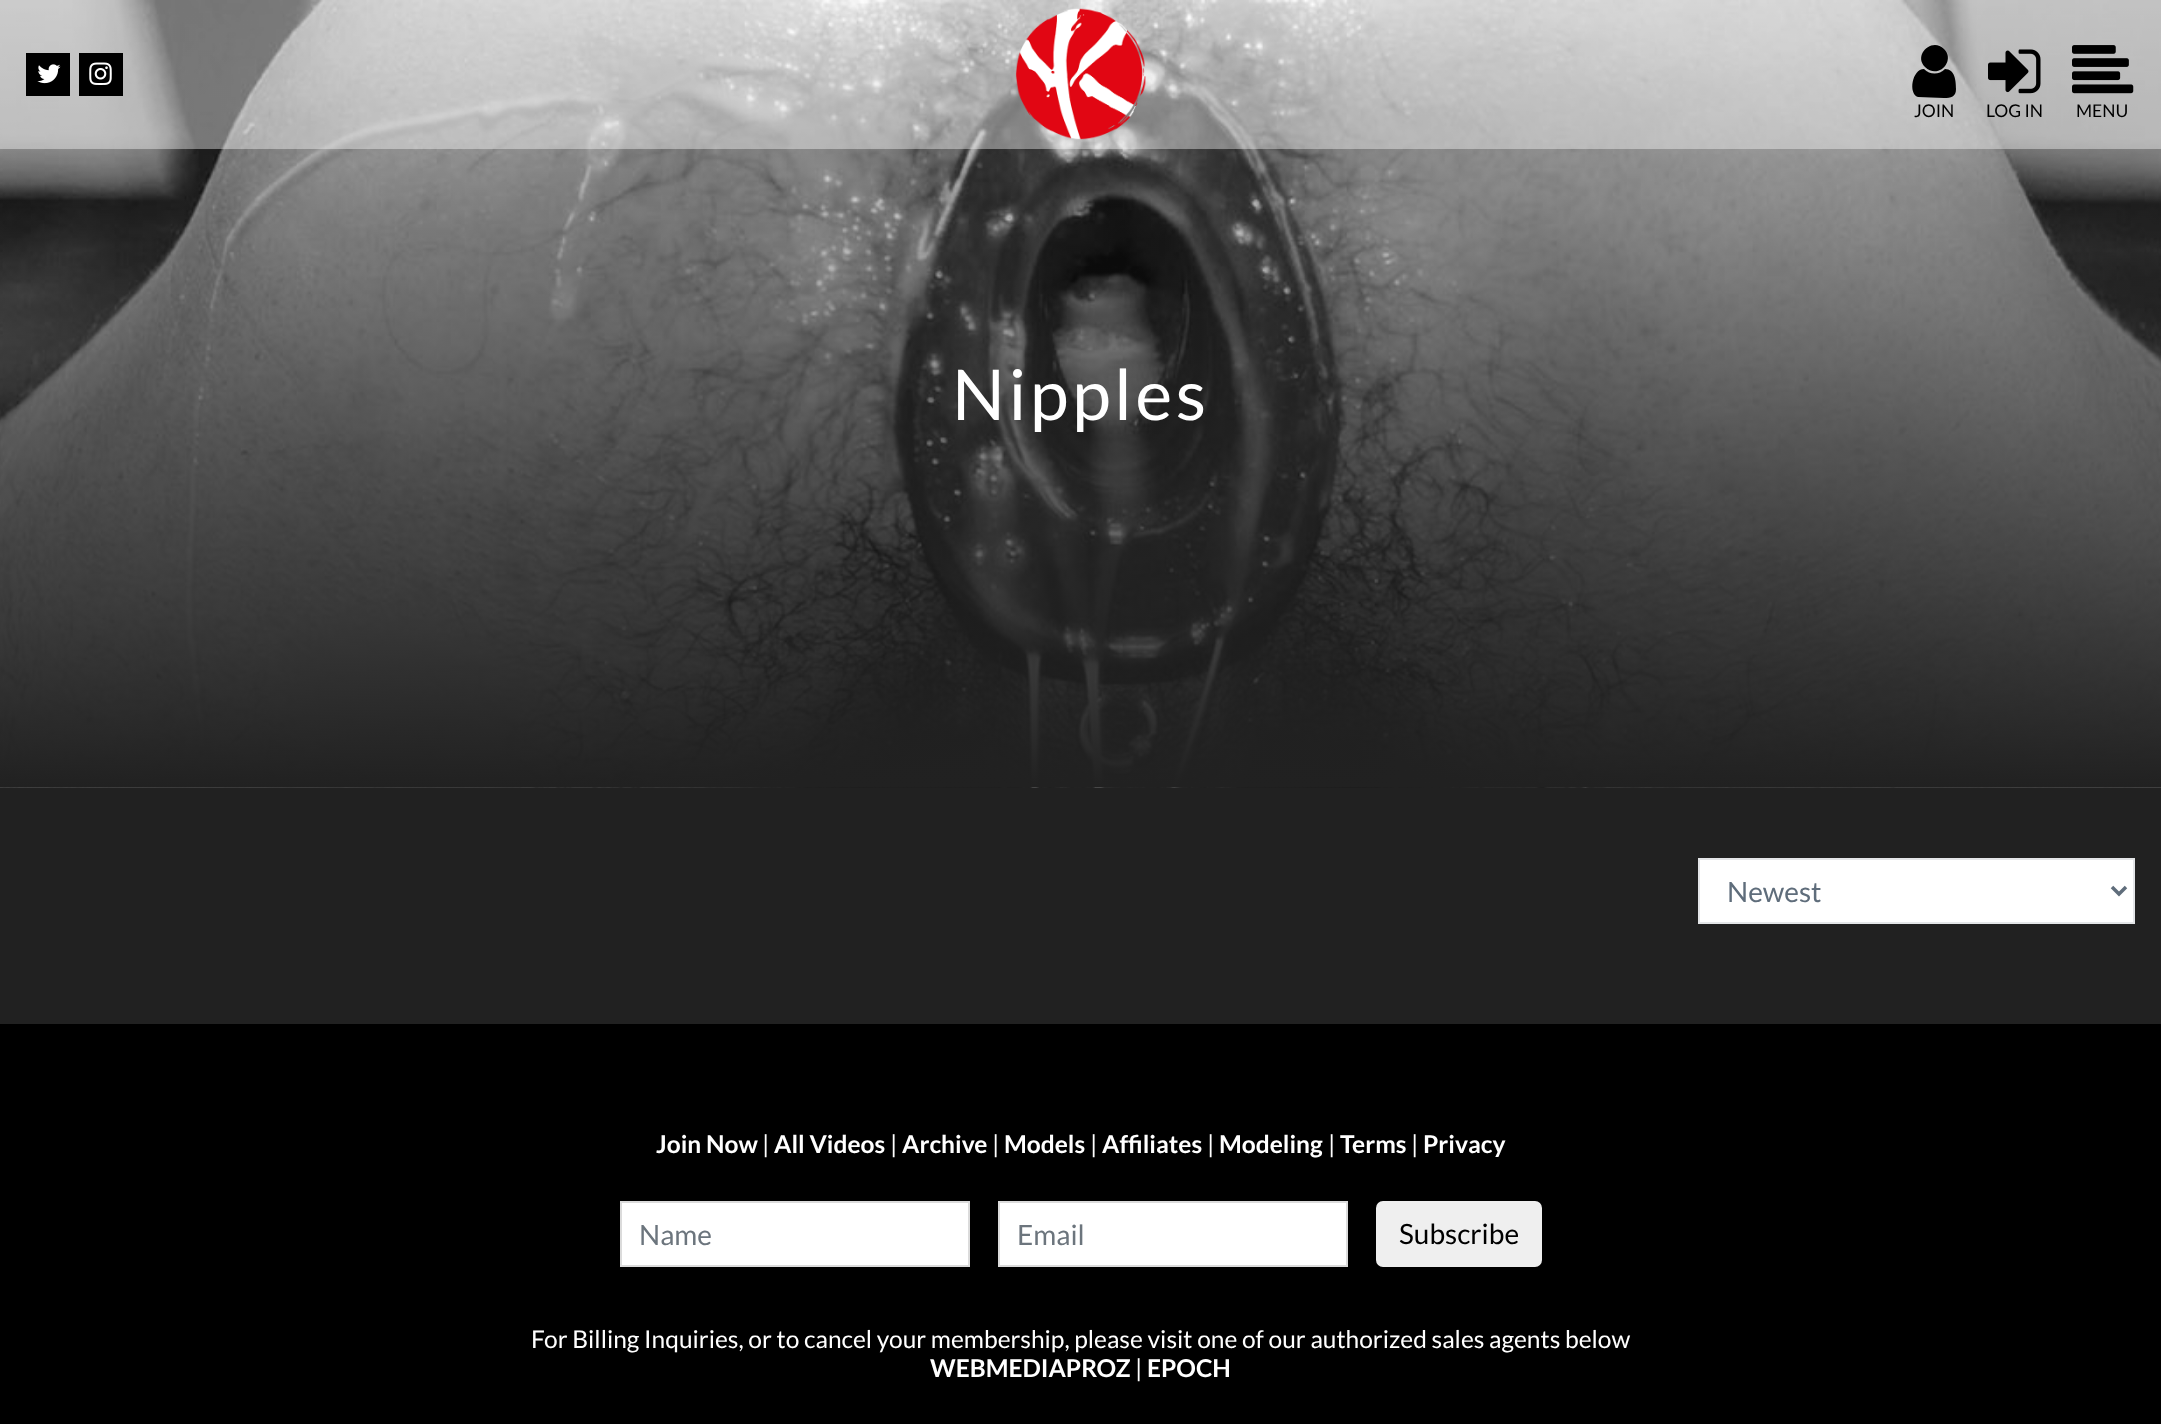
<svg xmlns="http://www.w3.org/2000/svg" width="2161" height="1424" viewBox="0 0 2161 1424">
  <rect width="100%" height="100%" fill="#212121"/>
  <image x="0" y="0" width="2161" height="788" href="img6.png"/>
  <rect x="0" y="0" width="2161" height="149" fill="#ffffff" fill-opacity="0.4"/>
  <rect x="26" y="53" width="44" height="43" fill="#000000"/>
  <image x="37" y="64" width="24" height="20" href="img1.png"/>
  <rect x="79" y="53" width="44" height="43" fill="#000000"/>
  <image x="89" y="62" width="23" height="23" href="img2.png"/>
  <image x="1015" y="8" width="131" height="132" href="img3.png"/>
  <path d="M1956 89C1956 97 1951 98 1944 98L1918 97C1908 94 1912 69 1924 69C1930 75 1939 75 1945 69C1955 69 1956 81 1956 89ZM1944 49C1956 61 1938 80 1925 67C1913 55 1932 37 1944 49Z" fill="#000000"/>
  <text x="1914" y="117" font-family="Lato" font-size="17.5" fill="#000000">JOIN</text>
  <image x="1988" y="49" width="53" height="45" href="img4.png"/>
  <text x="1986" y="117" font-family="Lato" font-size="17.5" fill="#000000">LOG IN</text>
  <image x="2072" y="45" width="62" height="49" href="img5.png"/>
  <text x="2076" y="117" font-family="Lato" font-size="17.5" fill="#000000">MENU</text>
  <text x="952" y="420" font-family="Lato" font-size="70" letter-spacing="3.5" fill="#ffffff">Nipples</text>
  <rect x="1699" y="859" width="435" height="64" fill="#ffffff" stroke="#e4e6e8" stroke-width="2"/>
  <path d="M2112 887L2119 894L2126 887" fill="none" stroke="#5f6d7b" stroke-width="3.5"/>
  <text x="1727" y="902" font-family="Lato" font-size="28" fill="#5f6d7b">Newest</text>
  <rect x="0" y="1024" width="2161" height="400" fill="#000000"/>
  <text x="656" y="1153" font-family="Lato" font-size="24.5" font-weight="bold" fill="#ffffff">Join Now</text>
  <text x="762" y="1153" font-family="Lato" font-size="24.5" fill="#ffffff">|</text>
  <text x="774" y="1153" font-family="Lato" font-size="24.5" font-weight="bold" fill="#ffffff">All Videos</text>
  <text x="890" y="1153" font-family="Lato" font-size="24.5" fill="#ffffff">|</text>
  <text x="902" y="1153" font-family="Lato" font-size="24.5" font-weight="bold" fill="#ffffff">Archive</text>
  <text x="992" y="1153" font-family="Lato" font-size="24.5" fill="#ffffff">|</text>
  <text x="1004" y="1153" font-family="Lato" font-size="24.5" font-weight="bold" fill="#ffffff">Models</text>
  <text x="1090" y="1153" font-family="Lato" font-size="24.5" fill="#ffffff">|</text>
  <text x="1102" y="1153" font-family="Lato" font-size="24.5" font-weight="bold" fill="#ffffff">Affiliates</text>
  <text x="1207" y="1153" font-family="Lato" font-size="24.5" fill="#ffffff">|</text>
  <text x="1219" y="1153" font-family="Lato" font-size="24.5" font-weight="bold" fill="#ffffff">Modeling</text>
  <text x="1328" y="1153" font-family="Lato" font-size="24.5" fill="#ffffff">|</text>
  <text x="1340" y="1153" font-family="Lato" font-size="24.5" font-weight="bold" fill="#ffffff">Terms</text>
  <text x="1411" y="1153" font-family="Lato" font-size="24.5" fill="#ffffff">|</text>
  <text x="1423" y="1153" font-family="Lato" font-size="24.5" font-weight="bold" fill="#ffffff">Privacy</text>
  <rect x="621" y="1202" width="348" height="64" fill="#ffffff" stroke="#dbdbdb" stroke-width="2"/>
  <text x="639" y="1245" font-family="Lato" font-size="28" fill="#6c757d">Name</text>
  <rect x="999" y="1202" width="348" height="64" fill="#ffffff" stroke="#dbdbdb" stroke-width="2"/>
  <text x="1017" y="1245" font-family="Lato" font-size="28" fill="#6c757d">Email</text>
  <rect x="1376" y="1201" width="166" height="66" rx="7" fill="#efefef"/>
  <text x="1399" y="1244" font-family="Lato" font-size="28" fill="#000000">Subscribe</text>
  <text x="531" y="1348" font-family="Lato" font-size="24.5" fill="#ffffff">For Billing Inquiries, or to cancel your membership, please visit one of our authorized sales agents below</text>
  <text x="930" y="1377" font-family="Lato" font-size="24.5" font-weight="bold" fill="#ffffff">WEBMEDIAPROZ</text>
  <text x="1135" y="1377" font-family="Lato" font-size="24.5" fill="#ffffff">|</text>
  <text x="1147" y="1377" font-family="Lato" font-size="24.5" font-weight="bold" fill="#ffffff">EPOCH</text>
</svg>
